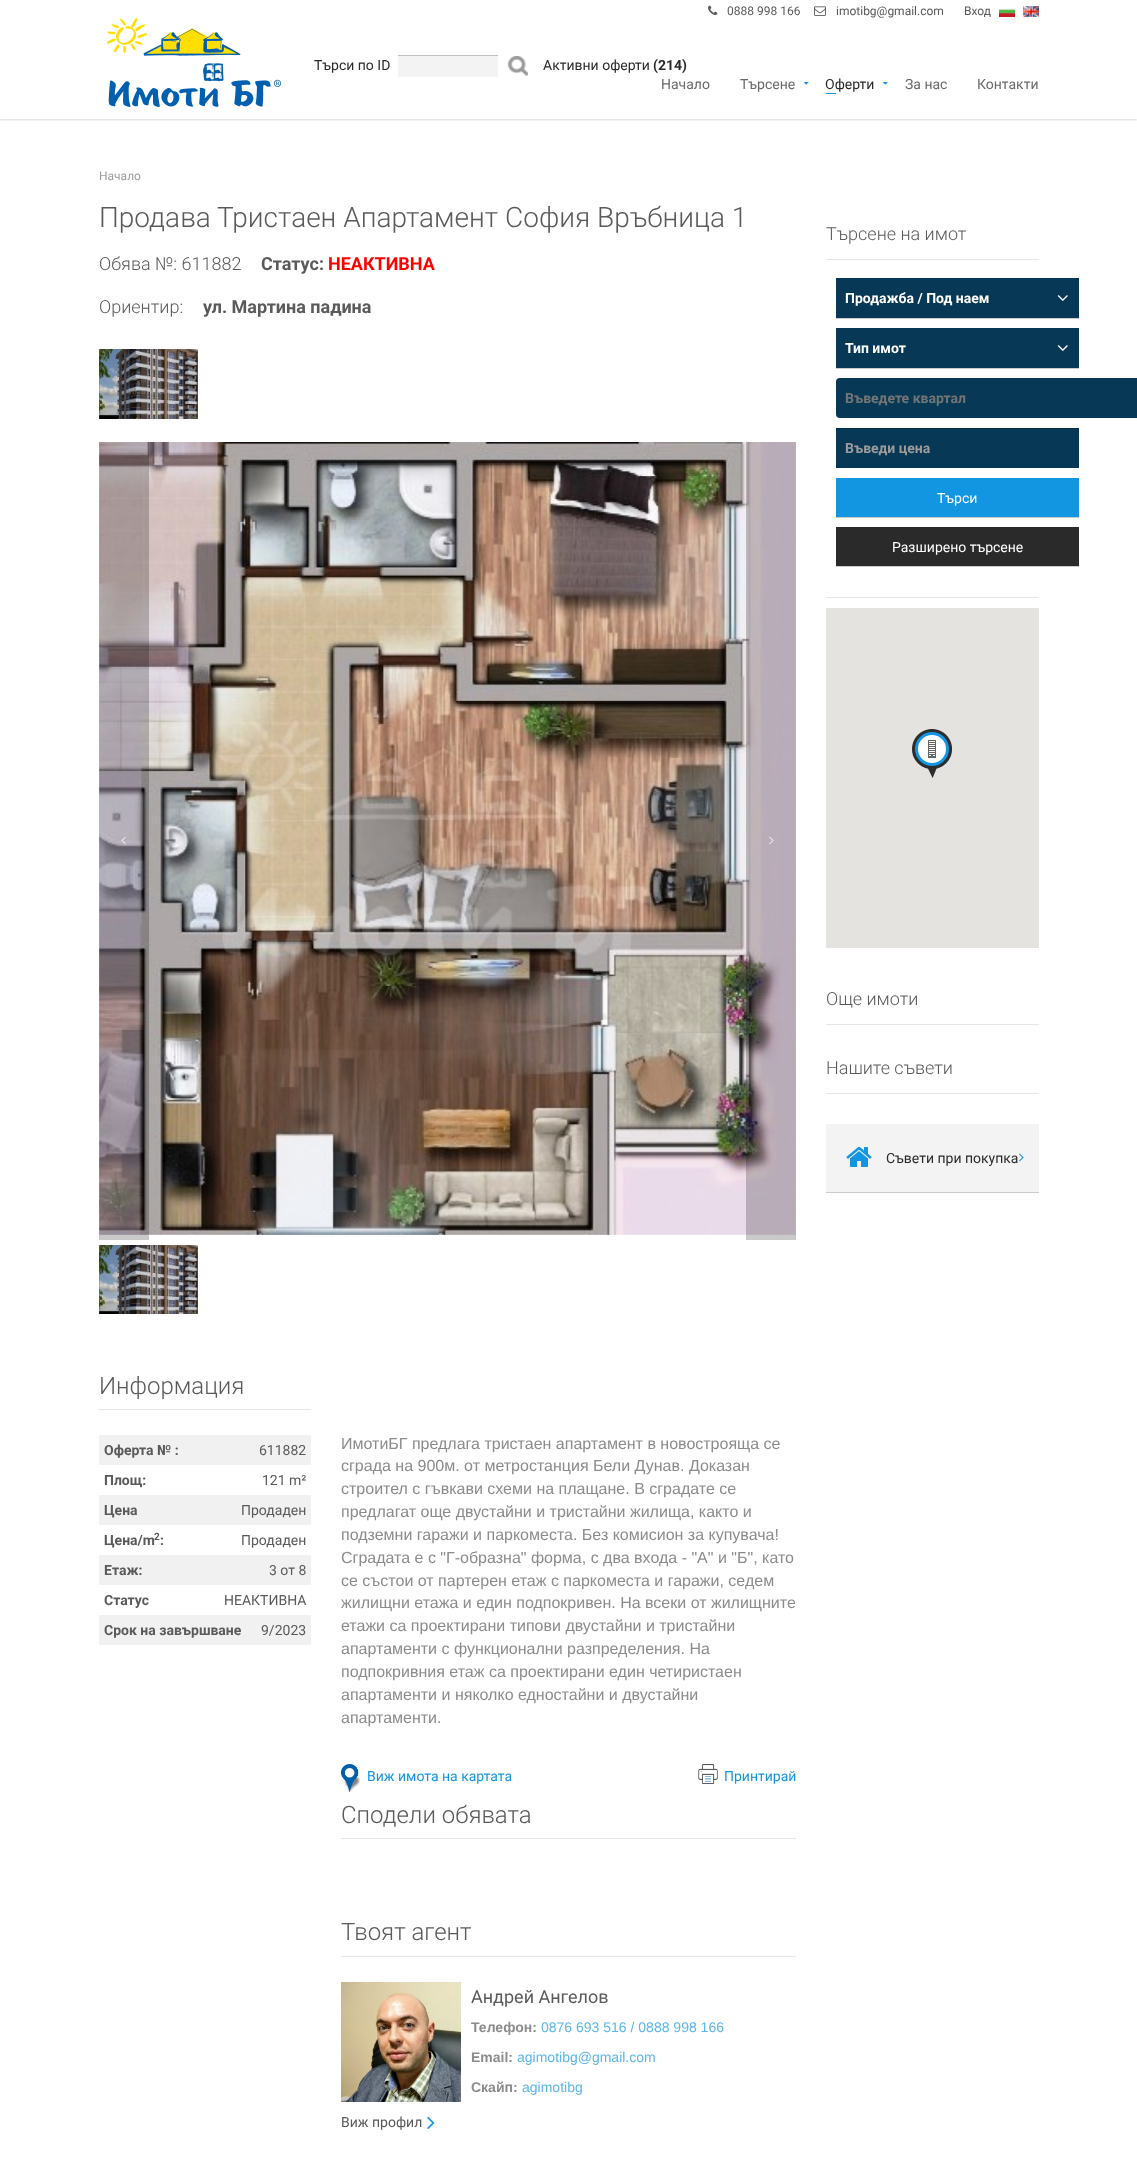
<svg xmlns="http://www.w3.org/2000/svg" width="1137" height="2159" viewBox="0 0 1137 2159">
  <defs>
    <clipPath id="clip1"><rect x="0" y="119" width="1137" height="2"/></clipPath>
    <filter id="blur1" x="-50%" y="-200%" width="200%" height="500%"><feGaussianBlur stdDeviation="1"/></filter>
    <filter id="blur2" x="-50%" y="-200%" width="200%" height="500%"><feGaussianBlur stdDeviation="0.5"/></filter>
  </defs>
  <rect width="100%" height="100%" fill="#ffffff"/>
  <g clip-path="url(#clip1)">
    <rect x="0" y="1" width="1137" height="119" fill="#000000" fill-opacity="0.15" filter="url(#blur1)"/>
  </g>
  <image x="708" y="5" width="10" height="10" href="img1.png"/>
  <text x="727" y="15" font-family="Roboto" font-size="12" fill="#5a5a5a">0888 998 166</text>
  <image x="814" y="6" width="12" height="10" href="img2.png"/>
  <text x="836" y="15" font-family="Roboto" font-size="12" fill="#5a5a5a">imotibg@gmail.com</text>
  <text x="964" y="15" font-family="Roboto" font-size="12" fill="#5a5a5a">Вход</text>
  <image x="999" y="9" width="16" height="8" href="img3.png"/>
  <image x="1023" y="6" width="16" height="11" href="img4.png"/>
  <image x="107" y="18" width="174" height="89" href="img5.png"/>
  <text x="314" y="70" font-family="Roboto" font-size="14" fill="#2a2a2a">Търси по ID</text>
  <rect x="398" y="56" width="100" height="21" fill="#f3f3f3"/>
  <rect x="398" y="55" width="100" height="1" fill="#c2c2c2"/>
  <image x="507" y="56" width="21" height="20" href="img6.png"/>
  <text x="543" y="70" font-family="Roboto" font-size="14" fill="#2a2a2a">Активни оферти</text>
  <text x="653" y="70" font-family="Roboto" font-size="14" font-weight="bold" fill="#2a2a2a">(214)</text>
  <text x="661" y="89" font-family="Roboto" font-size="14" fill="#6a6a6a">Начало</text>
  <text x="740" y="89" font-family="Roboto" font-size="14" fill="#6a6a6a">Търсене</text>
  <image x="804" y="82" width="5" height="3" href="img7.png"/>
  <text x="825" y="89" font-family="Roboto" font-size="14" fill="#2a2a2a">Оферти</text>
  <rect x="826" y="93" width="10" height="1" fill="#1396e2"/>
  <image x="883" y="82" width="5" height="3" href="img7.png"/>
  <text x="905" y="89" font-family="Roboto" font-size="14" fill="#6a6a6a">За нас</text>
  <text x="977" y="89" font-family="Roboto" font-size="14" fill="#6a6a6a">Контакти</text>
  <text x="99" y="180" font-family="Roboto" font-size="12" fill="#9c9c9c">Начало</text>
  <text x="99" y="227" font-family="Roboto" font-size="28" font-weight="300" fill="#5a5a5a">Продава Тристаен Апартамент</text>
  <text x="505" y="227" font-family="Roboto" font-size="28" font-weight="300" fill="#5a5a5a">София Връбница 1</text>
  <text x="99" y="270" font-family="Roboto" font-size="18" font-weight="300" fill="#5a5a5a">Обява №: 611882</text>
  <text x="261" y="270" font-family="Roboto" font-size="18" font-weight="bold" fill="#5a5a5a">Статус:</text>
  <text x="328" y="270" font-family="Roboto" font-size="18" font-weight="bold" fill="#ff0000">НЕАКТИВНА</text>
  <text x="99" y="313" font-family="Roboto" font-size="18" font-weight="300" fill="#5a5a5a">Ориентир:</text>
  <text x="203" y="313" font-family="Roboto" font-size="18" font-weight="bold" fill="#5a5a5a">ул. Мартина падина</text>
  <image x="99" y="349" width="99" height="70" href="img8.png"/>
  <image x="99" y="442" width="697" height="793" href="img9.png"/>
  <rect x="99" y="442" width="50" height="798" fill="#000000" fill-opacity="0.21"/>
  <image x="121" y="836" width="5" height="9" href="img10.png"/>
  <rect x="746" y="442" width="50" height="798" fill="#000000" fill-opacity="0.21"/>
  <image x="769" y="836" width="5" height="9" href="img11.png"/>
  <image x="99" y="1245" width="99" height="69" href="img12.png"/>
  <rect x="99" y="1409" width="212" height="1" fill="#e6e6e6"/>
  <text x="99" y="1394" font-family="Roboto" font-size="24" font-weight="300" fill="#5a5a5a">Информация</text>
  <rect x="99" y="1435" width="212" height="30" fill="#f1f1f1"/>
  <text x="104" y="1455" font-family="Roboto" font-size="14" font-weight="bold" fill="#5a5a5a">Оферта № :</text>
  <text x="259" y="1455" font-family="Roboto" font-size="14" fill="#5a5a5a">611882</text>
  <text x="104" y="1485" font-family="Roboto" font-size="14" font-weight="bold" fill="#5a5a5a">Площ:</text>
  <text x="262" y="1485" font-family="Roboto" font-size="14" fill="#5a5a5a">121 m²</text>
  <rect x="99" y="1495" width="212" height="30" fill="#f1f1f1"/>
  <text x="104" y="1515" font-family="Roboto" font-size="14" font-weight="bold" fill="#5a5a5a">Цена</text>
  <text x="241" y="1515" font-family="Roboto" font-size="14" fill="#5a5a5a">Продаден</text>
  <text x="104" y="1545" font-family="Roboto" font-size="14" font-weight="bold" fill="#5a5a5a">Цена/m</text>
  <text x="154" y="1540" font-family="Roboto" font-size="10" font-weight="bold" fill="#5a5a5a">2</text>
  <text x="160" y="1545" font-family="Roboto" font-size="14" font-weight="bold" fill="#5a5a5a">:</text>
  <text x="241" y="1545" font-family="Roboto" font-size="14" fill="#5a5a5a">Продаден</text>
  <rect x="99" y="1555" width="212" height="30" fill="#f1f1f1"/>
  <text x="104" y="1575" font-family="Roboto" font-size="14" font-weight="bold" fill="#5a5a5a">Етаж:</text>
  <text x="269" y="1575" font-family="Roboto" font-size="14" fill="#5a5a5a">3 от 8</text>
  <text x="104" y="1605" font-family="Roboto" font-size="14" font-weight="bold" fill="#5a5a5a">Статус</text>
  <text x="224" y="1605" font-family="Roboto" font-size="14" fill="#5a5a5a">НЕАКТИВНА</text>
  <rect x="99" y="1615" width="212" height="30" fill="#f1f1f1"/>
  <text x="104" y="1635" font-family="Roboto" font-size="14" font-weight="bold" fill="#5a5a5a">Срок на завършване</text>
  <text x="261" y="1635" font-family="Roboto" font-size="14" fill="#5a5a5a">9/2023</text>
  <text x="341" y="1449" font-family="Liberation Sans" font-size="16" fill="#8c8c8c">ИмотиБГ предлага тристаен апартамент в новострояща се</text>
  <text x="341" y="1471" font-family="Liberation Sans" font-size="16" fill="#8c8c8c">сграда на 900м. от метростанция Бели Дунав. Доказан</text>
  <text x="341" y="1494" font-family="Liberation Sans" font-size="16" fill="#8c8c8c">строител с гъвкави схеми на плащане. В сградате се</text>
  <text x="341" y="1517" font-family="Liberation Sans" font-size="16" fill="#8c8c8c">предлагат още двустайни и тристайни жилища, както и</text>
  <text x="341" y="1540" font-family="Liberation Sans" font-size="16" fill="#8c8c8c">подземни гаражи и паркоместа. Без комисион за купувача!</text>
  <text x="341" y="1563" font-family="Liberation Sans" font-size="16" fill="#8c8c8c">Сградата е с "Г-образна" форма, с два входа - "А" и "Б", като</text>
  <text x="341" y="1586" font-family="Liberation Sans" font-size="16" fill="#8c8c8c">се състои от партерен етаж с паркоместа и гаражи, седем</text>
  <text x="341" y="1608" font-family="Liberation Sans" font-size="16" fill="#8c8c8c">жилищни етажа и един подпокривен. На всеки от жилищните</text>
  <text x="341" y="1631" font-family="Liberation Sans" font-size="16" fill="#8c8c8c">етажи са проектирани типови двустайни и тристайни</text>
  <text x="341" y="1654" font-family="Liberation Sans" font-size="16" fill="#8c8c8c">апартаменти с функционални разпределения. На</text>
  <text x="341" y="1677" font-family="Liberation Sans" font-size="16" fill="#8c8c8c">подпокривния етаж са проектирани един четиристаен</text>
  <text x="341" y="1700" font-family="Liberation Sans" font-size="16" fill="#8c8c8c">апартаменти и няколко едностайни и двустайни</text>
  <text x="341" y="1723" font-family="Liberation Sans" font-size="16" fill="#8c8c8c">апартаменти.</text>
  <image x="341" y="1764" width="20" height="28" href="img13.png"/>
  <text x="367" y="1781" font-family="Roboto" font-size="14" fill="#1396e2">Виж имота на картата</text>
  <image x="698" y="1764" width="20" height="20" href="img14.png"/>
  <text x="724" y="1781" font-family="Roboto" font-size="14" fill="#1396e2">Принтирай</text>
  <rect x="341" y="1838" width="455" height="1" fill="#e6e6e6"/>
  <text x="341" y="1823" font-family="Roboto" font-size="24" font-weight="300" fill="#5a5a5a">Сподели обявата</text>
  <rect x="341" y="1956" width="455" height="1" fill="#e6e6e6"/>
  <text x="341" y="1940" font-family="Roboto" font-size="24" font-weight="300" fill="#5a5a5a">Твоят агент</text>
  <text x="471" y="2003" font-family="Roboto" font-size="18" fill="#5a5a5a">Андрей Ангелов</text>
  <text x="471" y="2032" font-family="Liberation Sans" font-size="14" font-weight="bold" fill="#8c8c8c">Телефон:</text>
  <text x="541" y="2032" font-family="Liberation Sans" font-size="14" fill="#5ab6eb">0876 693 516 / 0888 998 166</text>
  <text x="471" y="2062" font-family="Liberation Sans" font-size="14" font-weight="bold" fill="#8c8c8c">Email:</text>
  <text x="517" y="2062" font-family="Liberation Sans" font-size="14" fill="#5ab6eb">agimotibg@gmail.com</text>
  <text x="471" y="2092" font-family="Liberation Sans" font-size="14" font-weight="bold" fill="#8c8c8c">Скайп:</text>
  <text x="522" y="2092" font-family="Liberation Sans" font-size="14" fill="#5ab6eb">agimotibg</text>
  <image x="341" y="1982" width="120" height="120" href="img15.png"/>
  <text x="341" y="2127" font-family="Roboto" font-size="14" fill="#5a5a5a">Виж профил</text>
  <image x="427" y="2116" width="8" height="13" href="img16.png"/>
  <rect x="826" y="259" width="213" height="1" fill="#e6e6e6"/>
  <text x="826" y="240" font-family="Roboto" font-size="18" font-weight="300" fill="#5a5a5a">Търсене на имот</text>
  <rect x="836" y="279" width="243" height="40" fill="#000000" fill-opacity="0.2" filter="url(#blur2)"/>
  <rect x="836" y="278" width="243" height="40" fill="#073855"/>
  <text x="845" y="303" font-family="Roboto" font-size="14" font-weight="bold" fill="#ffffff">Продажба / Под наем</text>
  <image x="1057" y="295" width="11" height="6" href="img17.png"/>
  <rect x="836" y="329" width="243" height="40" fill="#000000" fill-opacity="0.2" filter="url(#blur2)"/>
  <rect x="836" y="328" width="243" height="40" fill="#073855"/>
  <text x="845" y="353" font-family="Roboto" font-size="14" font-weight="bold" fill="#ffffff">Тип имот</text>
  <image x="1057" y="345" width="11" height="6" href="img17.png"/>
  <rect x="836" y="378" width="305" height="40" rx="4" fill="#073855"/>
  <text x="845" y="403" font-family="Roboto" font-size="14" font-weight="bold" fill="#757575">Въведете квартал</text>
  <rect x="836" y="429" width="243" height="39" fill="#073855"/>
  <rect x="836" y="428" width="243" height="1" fill="#062d44"/>
  <text x="845" y="453" font-family="Roboto" font-size="14" font-weight="bold" fill="#9c9c9c">Въведи цена</text>
  <rect x="836" y="479" width="243" height="39" fill="#000000" fill-opacity="0.2" filter="url(#blur2)"/>
  <rect x="836" y="478" width="243" height="39" fill="#1396e2"/>
  <text x="937" y="503" font-family="Roboto" font-size="14" fill="#ffffff">Търси</text>
  <rect x="836" y="528" width="243" height="39" fill="#000000" fill-opacity="0.2" filter="url(#blur2)"/>
  <rect x="836" y="527" width="243" height="39" fill="#2a2a2a"/>
  <text x="892" y="552" font-family="Roboto" font-size="14" fill="#ffffff">Разширено търсене</text>
  <rect x="826" y="597" width="213" height="1" fill="#e6e6e6"/>
  <rect x="826" y="608" width="213" height="340" fill="#e5e3df"/>
  <image x="912" y="729" width="40" height="49" href="img18.png"/>
  <circle cx="932" cy="749" r="15.5" fill="none" stroke="#1396e2" stroke-width="3"/>
  <image x="928" y="740" width="8" height="18" href="img19.png"/>
  <rect x="826" y="1024" width="213" height="1" fill="#e6e6e6"/>
  <text x="826" y="1005" font-family="Roboto" font-size="18" font-weight="300" fill="#5a5a5a">Още имоти</text>
  <rect x="826" y="1093" width="213" height="1" fill="#e6e6e6"/>
  <text x="826" y="1074" font-family="Roboto" font-size="18" font-weight="300" fill="#5a5a5a">Нашите съвети</text>
  <rect x="826" y="1125" width="213" height="68" fill="#000000" fill-opacity="0.2" filter="url(#blur2)"/>
  <rect x="826" y="1124" width="213" height="68" fill="#f3f3f3"/>
  <image x="846" y="1147" width="26" height="20" href="img20.png"/>
  <text x="886" y="1163" font-family="Roboto" font-size="14" fill="#2a2a2a">Съвети при покупка</text>
  <image x="1019" y="1153" width="5" height="9" href="img21.png"/>
</svg>
